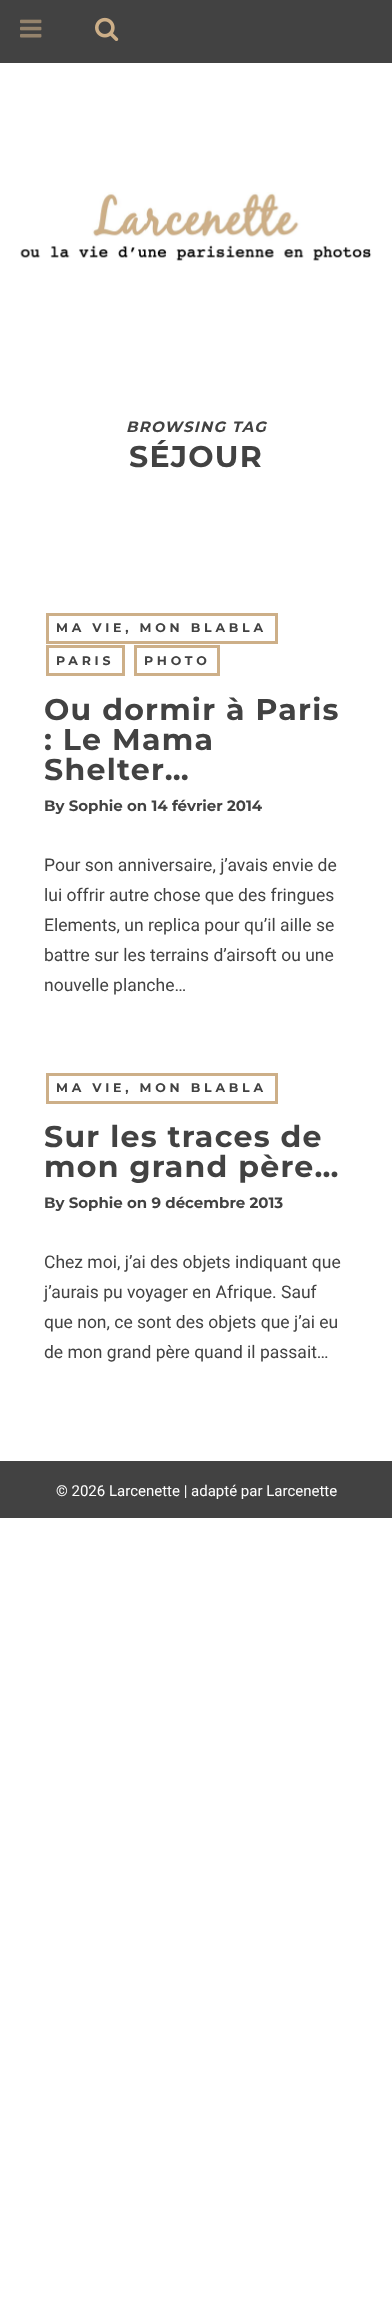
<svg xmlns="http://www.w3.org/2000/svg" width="392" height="2322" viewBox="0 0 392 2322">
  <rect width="100%" height="100%" fill="#ffffff"/>
  <rect x="0" y="0" width="392" height="63" fill="#424242"/>
  <image x="20" y="19" width="22" height="19" href="img1.png"/>
  <image x="95" y="17" width="24" height="24" href="img2.png"/>
  <image x="20" y="192" width="352" height="69" href="img3.png"/>
  <text x="126" y="432" font-family="Montserrat" font-size="15" font-weight="100" font-style="italic" letter-spacing="1.25" fill="#424242">BROWSING TAG</text>
  <text x="129" y="467" font-family="Montserrat" font-size="30" font-weight="100" letter-spacing="1.25" fill="#424242">SÉJOUR</text>
  <rect x="47.5" y="614.5" width="229" height="28" fill="none" stroke="#cdaf88" stroke-width="3"/>
  <text x="56" y="632" font-family="Montserrat" font-size="12.5" font-weight="100" letter-spacing="3.75" fill="#424242">MA VIE, MON BLABLA</text>
  <rect x="47.5" y="646.5" width="76" height="28" fill="none" stroke="#cdaf88" stroke-width="3"/>
  <text x="56" y="665" font-family="Montserrat" font-size="12.5" font-weight="100" letter-spacing="3.75" fill="#424242">PARIS</text>
  <rect x="135.5" y="646.5" width="83" height="28" fill="none" stroke="#cdaf88" stroke-width="3"/>
  <text x="144" y="665" font-family="Montserrat" font-size="12.5" font-weight="100" letter-spacing="3.75" fill="#424242">PHOTO</text>
  <text x="44" y="720" font-family="Montserrat" font-size="30" font-weight="100" letter-spacing="1.25" fill="#424242">Ou dormir à Paris</text>
  <text x="44" y="750" font-family="Montserrat" font-size="30" font-weight="100" letter-spacing="1.25" fill="#424242">: Le Mama</text>
  <text x="44" y="780" font-family="Montserrat" font-size="30" font-weight="100" letter-spacing="1.25" fill="#424242">Shelter…</text>
  <text x="44" y="811" font-family="Montserrat" font-size="15" font-weight="100" fill="#424242">By Sophie on 14 février 2014</text>
  <text x="44" y="871" font-family="Roboto" font-size="17.5" fill="#424242">Pour son anniversaire, j’avais envie de</text>
  <text x="44" y="901" font-family="Roboto" font-size="17.5" fill="#424242">lui offrir autre chose que des fringues</text>
  <text x="44" y="931" font-family="Roboto" font-size="17.5" fill="#424242">Elements, un replica pour qu’il aille se</text>
  <text x="44" y="961" font-family="Roboto" font-size="17.5" fill="#424242">battre sur les terrains d’airsoft ou une</text>
  <text x="44" y="991" font-family="Roboto" font-size="17.5" fill="#424242">nouvelle planche…</text>
  <rect x="47.5" y="1074.5" width="229" height="28" fill="none" stroke="#cdaf88" stroke-width="3"/>
  <text x="56" y="1092" font-family="Montserrat" font-size="12.5" font-weight="100" letter-spacing="3.75" fill="#424242">MA VIE, MON BLABLA</text>
  <text x="44" y="1147" font-family="Montserrat" font-size="30" font-weight="100" letter-spacing="1.25" fill="#424242">Sur les traces de</text>
  <text x="44" y="1177" font-family="Montserrat" font-size="30" font-weight="100" letter-spacing="1.25" fill="#424242">mon grand père…</text>
  <text x="44" y="1208" font-family="Montserrat" font-size="15" font-weight="100" fill="#424242">By Sophie on 9 décembre 2013</text>
  <text x="44" y="1268" font-family="Roboto" font-size="17.5" fill="#424242">Chez moi, j’ai des objets indiquant que</text>
  <text x="44" y="1298" font-family="Roboto" font-size="17.5" fill="#424242">j’aurais pu voyager en Afrique. Sauf</text>
  <text x="44" y="1328" font-family="Roboto" font-size="17.5" fill="#424242">que non, ce sont des objets que j’ai eu</text>
  <text x="44" y="1358" font-family="Roboto" font-size="17.5" fill="#424242">de mon grand père quand il passait…</text>
  <rect x="0" y="1461" width="392" height="57" fill="#424242"/>
  <text x="56" y="1496" font-family="Roboto" font-size="15" fill="#ffffff">© 2026 Larcenette | adapté par Larcenette</text>
</svg>
